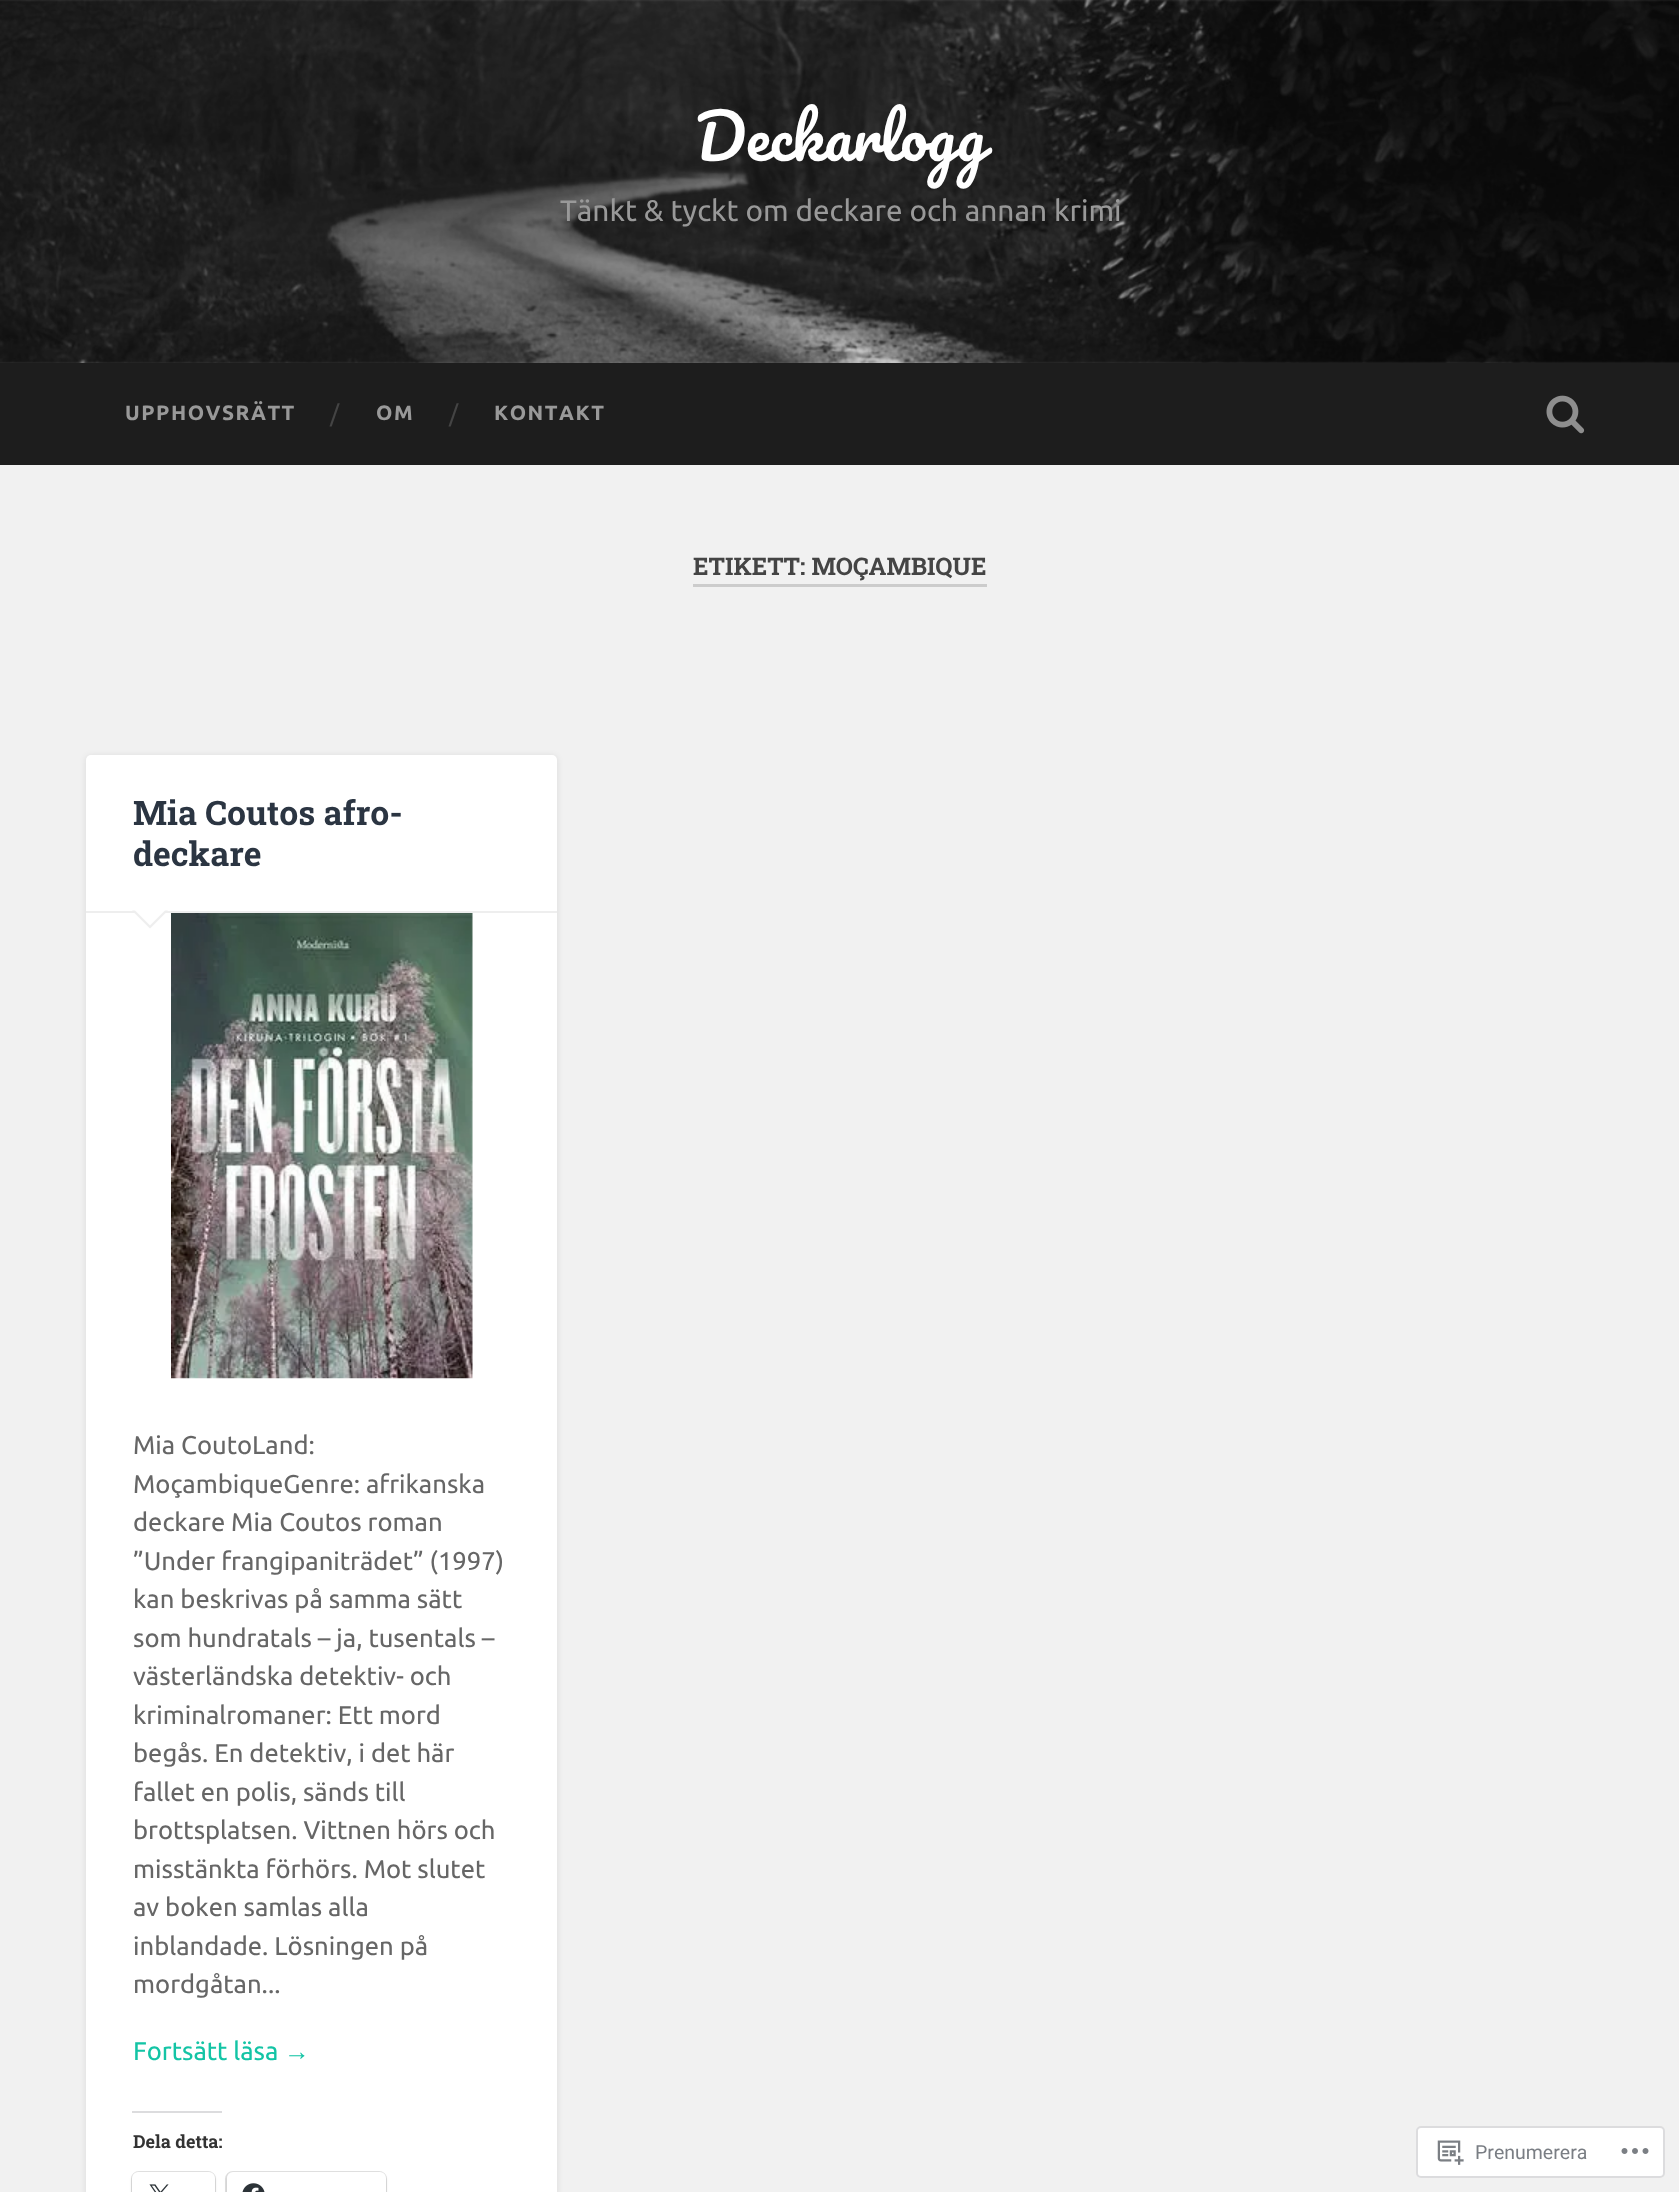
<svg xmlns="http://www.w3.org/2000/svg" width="1679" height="2192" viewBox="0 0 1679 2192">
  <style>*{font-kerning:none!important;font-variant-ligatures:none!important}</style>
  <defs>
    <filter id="blur1" x="-50%" y="-200%" width="200%" height="500%"><feGaussianBlur stdDeviation="3"/></filter>
    <filter id="blur2" x="-50%" y="-200%" width="200%" height="500%"><feGaussianBlur stdDeviation="1.5"/></filter>
  </defs>
  <rect width="100%" height="100%" fill="#f1f1f1"/>
  <image x="0" y="0" width="1679" height="363" href="img1.png"/>
  <text x="695" y="161" font-family="Pacifico" font-size="60.75" fill="#ffffff">Deckarlogg</text>
  <text x="560" y="221" font-family="Ubuntu" font-size="29.75" fill="#999999">Tänkt &amp; tyckt om deckare och annan krimi</text>
  <rect x="0" y="363" width="1679" height="102" fill="#1d1d1d"/>
  <text x="125" y="420" font-family="Ubuntu" font-size="20.75" font-weight="bold" letter-spacing="1.5" fill="#999999">UPPHOVSRÄTT</text>
  <text x="330" y="422" font-family="Ubuntu" font-size="24" fill="#444444">/</text>
  <text x="376" y="420" font-family="Ubuntu" font-size="20.75" font-weight="bold" letter-spacing="1.5" fill="#999999">OM</text>
  <text x="449" y="422" font-family="Ubuntu" font-size="24" fill="#444444">/</text>
  <text x="494" y="420" font-family="Ubuntu" font-size="20.75" font-weight="bold" letter-spacing="1.5" fill="#999999">KONTAKT</text>
  <image x="1546" y="395" width="39" height="39" href="img2.png"/>
  <rect x="693" y="584" width="294" height="3" fill="#cccccc"/>
  <text x="693" y="575" font-family="Roboto Slab" font-size="24.25" font-weight="bold" fill="#444444">ETIKETT: MOÇAMBIQUE</text>
  <rect x="86" y="756" width="471" height="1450" rx="5" fill="#000000" fill-opacity="0.1" filter="url(#blur1)"/>
  <rect x="86" y="755" width="471" height="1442" rx="5" fill="#ffffff"/>
  <rect x="86" y="911" width="471" height="2" fill="#eeeeee"/>
  <text x="133" y="825" font-family="Roboto Slab" font-size="33.75" font-weight="bold" fill="#2b3542">Mia Coutos afro-</text>
  <text x="133" y="866" font-family="Roboto Slab" font-size="33.75" font-weight="bold" fill="#2b3542">deckare</text>
  <path d="M132 910.5H168L150 928.5Z" fill="#eeeeee"/>
  <path d="M133.5 909H166.5L150 925.5Z" fill="#ffffff"/>
  <image x="171" y="913" width="302" height="466" href="img3.png"/>
  <text x="133" y="1454" font-family="Ubuntu" font-size="25.6" fill="#666666">Mia CoutoLand:</text>
  <text x="133" y="1493" font-family="Ubuntu" font-size="25.6" fill="#666666">MoçambiqueGenre: afrikanska</text>
  <text x="133" y="1531" font-family="Ubuntu" font-size="25.6" fill="#666666">deckare Mia Coutos roman</text>
  <text x="133" y="1570" font-family="Ubuntu" font-size="25.6" fill="#666666">”Under frangipaniträdet” (1997)</text>
  <text x="133" y="1608" font-family="Ubuntu" font-size="25.6" fill="#666666">kan beskrivas på samma sätt</text>
  <text x="133" y="1647" font-family="Ubuntu" font-size="25.6" fill="#666666">som hundratals – ja, tusentals –</text>
  <text x="133" y="1685" font-family="Ubuntu" font-size="25.6" fill="#666666">västerländska detektiv- och</text>
  <text x="133" y="1724" font-family="Ubuntu" font-size="25.6" fill="#666666">kriminalromaner: Ett mord</text>
  <text x="133" y="1762" font-family="Ubuntu" font-size="25.6" fill="#666666">begås. En detektiv, i det här</text>
  <text x="133" y="1801" font-family="Ubuntu" font-size="25.6" fill="#666666">fallet en polis, sänds till</text>
  <text x="133" y="1839" font-family="Ubuntu" font-size="25.6" fill="#666666">brottsplatsen. Vittnen hörs och</text>
  <text x="133" y="1878" font-family="Ubuntu" font-size="25.6" fill="#666666">misstänkta förhörs. Mot slutet</text>
  <text x="133" y="1916" font-family="Ubuntu" font-size="25.6" fill="#666666">av boken samlas alla</text>
  <text x="133" y="1955" font-family="Ubuntu" font-size="25.6" fill="#666666">inblandade. Lösningen på</text>
  <text x="133" y="1993" font-family="Ubuntu" font-size="25.6" fill="#666666">mordgåtan...</text>
  <text x="133" y="2060" font-family="Ubuntu" font-size="25.6" fill="#13c4a5">Fortsätt läsa</text>
  <text x="284" y="2060" font-family="Liberation Sans" font-size="25.6" fill="#13c4a5">→</text>
  <rect x="132" y="2111" width="90" height="2" fill="#dcdcde"/>
  <text x="133" y="2148" font-family="Roboto Slab" font-size="18" font-weight="bold" fill="#333333">Dela detta:</text>
  <rect x="132" y="2172" width="83" height="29" rx="7" fill="none" stroke="#e0e0e0" stroke-width="2"/>
  <rect x="132" y="2174" width="83" height="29" rx="6" fill="#000000" fill-opacity="0.12" filter="url(#blur2)"/>
  <rect x="132" y="2172" width="83" height="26" rx="6" fill="#ffffff"/>
  <image x="149" y="2184" width="20" height="8" href="img4.png"/>
  <rect x="226" y="2172" width="160" height="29" rx="7" fill="none" stroke="#e0e0e0" stroke-width="2"/>
  <rect x="227" y="2174" width="159" height="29" rx="6" fill="#000000" fill-opacity="0.12" filter="url(#blur2)"/>
  <rect x="227" y="2172" width="159" height="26" rx="6" fill="#ffffff"/>
  <image x="242" y="2183" width="23" height="9" href="img5.png"/>
  <rect x="1417" y="2127" width="247" height="50" rx="4" fill="#ffffff" stroke="#dcdcde" stroke-width="2"/>
  <image x="1437" y="2140" width="27" height="25" href="img6.png"/>
  <text x="1475" y="2159" font-family="Roboto" font-size="19.5" fill="#7a7e84">Prenumerera</text>
  <image x="1621" y="2148" width="28" height="6" href="img7.png"/>
</svg>
